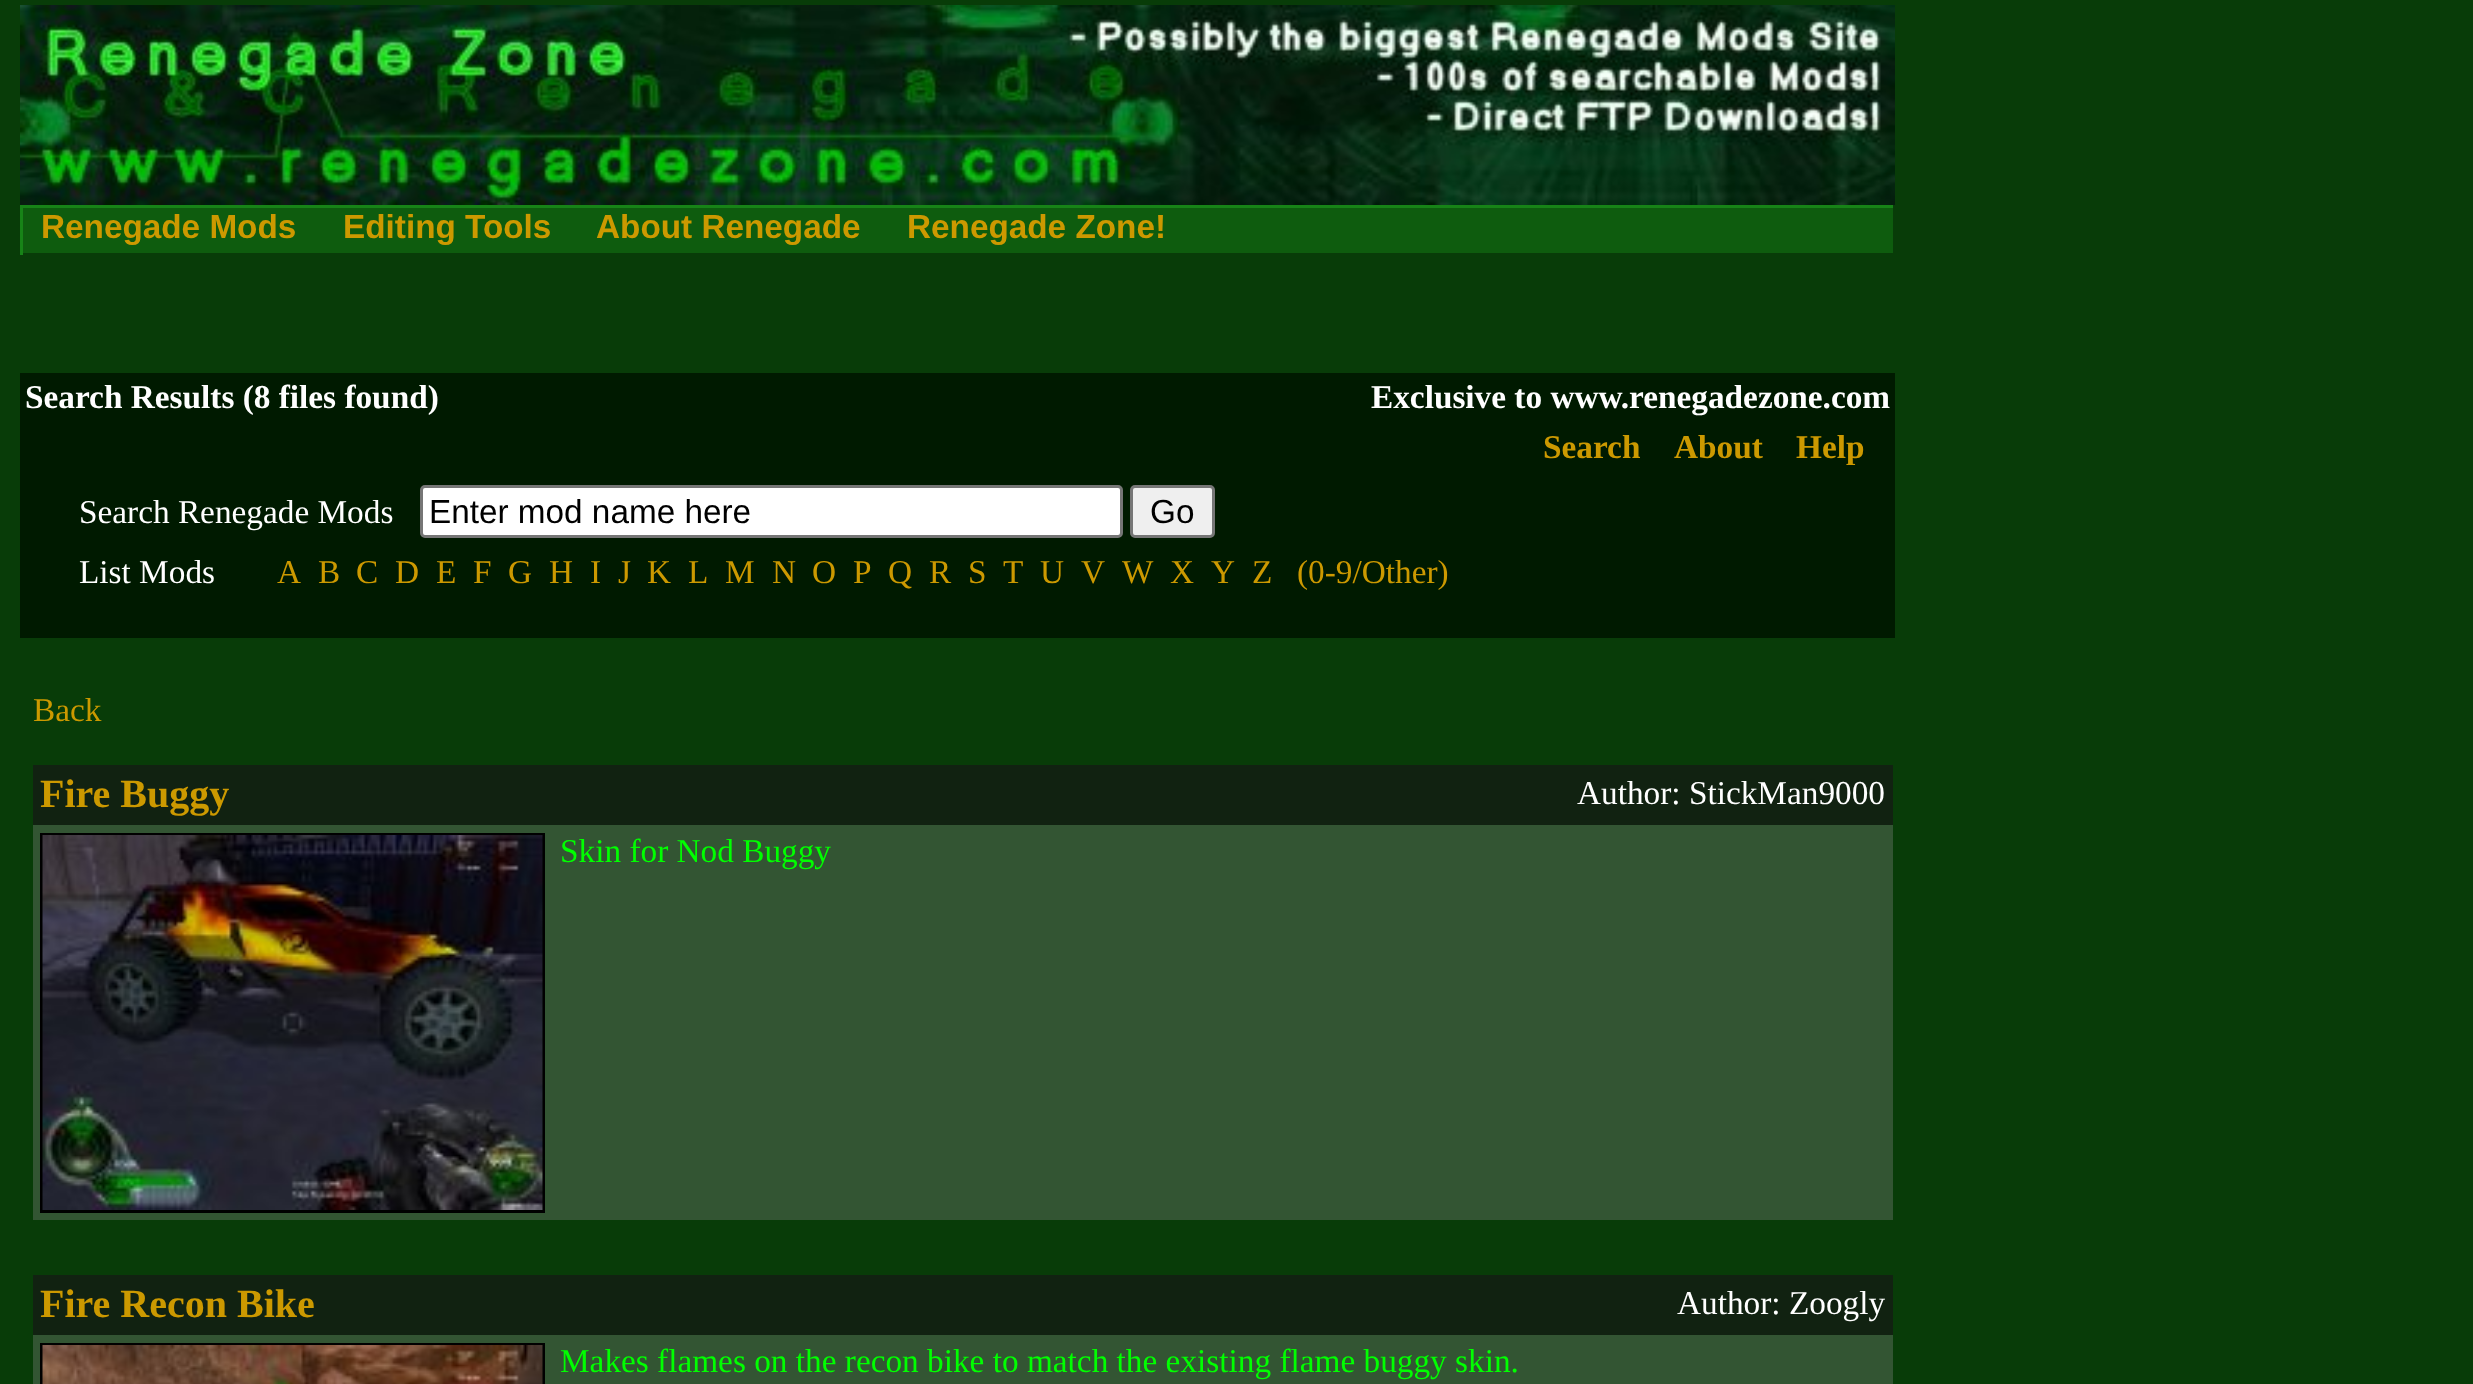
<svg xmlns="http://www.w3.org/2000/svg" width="2473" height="1384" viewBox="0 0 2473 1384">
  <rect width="100%" height="100%" fill="#083c08"/>
  <image x="20" y="5" width="1875" height="200" href="img1.png"/>
  <rect x="23" y="208" width="1870" height="45" fill="#0e5c0e"/>
  <rect x="20" y="205" width="1875" height="3" fill="#178317"/>
  <rect x="1893" y="205" width="2" height="3" fill="#093b09"/>
  <rect x="20" y="205" width="3" height="50" fill="#178317"/>
  <text x="41" y="238" font-family="Liberation Sans" font-size="33.3" font-weight="bold" fill="#cc9900">Renegade Mods</text>
  <text x="343" y="238" font-family="Liberation Sans" font-size="33.3" font-weight="bold" fill="#cc9900">Editing Tools</text>
  <text x="596" y="238" font-family="Liberation Sans" font-size="33.3" font-weight="bold" fill="#cc9900">About Renegade</text>
  <text x="907" y="238" font-family="Liberation Sans" font-size="33.3" font-weight="bold" fill="#cc9900">Renegade Zone!</text>
  <rect x="20" y="373" width="1875" height="265" fill="#001a00"/>
  <text x="25" y="408" font-family="Liberation Serif" font-size="33.3" font-weight="bold" fill="#ffffff">Search Results (8 files found)</text>
  <text x="1371" y="408" font-family="Liberation Serif" font-size="33.3" font-weight="bold" fill="#ffffff">Exclusive to www.renegadezone.com</text>
  <text x="1543" y="458" font-family="Liberation Serif" font-size="33.3" font-weight="bold" fill="#cc9900">Search</text>
  <text x="1674" y="458" font-family="Liberation Serif" font-size="33.3" font-weight="bold" fill="#cc9900">About</text>
  <text x="1796" y="458" font-family="Liberation Serif" font-size="33.3" font-weight="bold" fill="#cc9900">Help</text>
  <text x="79" y="523" font-family="Liberation Serif" font-size="33.3" fill="#ffffff">Search Renegade Mods</text>
  <rect x="421.5" y="486.5" width="700" height="50" rx="3.5" fill="#ffffff" stroke="#767676" stroke-width="3"/>
  <text x="429" y="523" font-family="Liberation Sans" font-size="33.3" fill="#000000">Enter mod name here</text>
  <rect x="1131.5" y="486.5" width="82" height="50" rx="3.5" fill="#efefef" stroke="#767676" stroke-width="3"/>
  <text x="1150" y="523" font-family="Liberation Sans" font-size="33.3" fill="#000000">Go</text>
  <text x="79" y="583" font-family="Liberation Serif" font-size="33.3" fill="#ffffff">List Mods</text>
  <text x="277" y="583" font-family="Liberation Serif" font-size="33.3" fill="#cc9900">A</text>
  <text x="318" y="583" font-family="Liberation Serif" font-size="33.3" fill="#cc9900">B</text>
  <text x="356" y="583" font-family="Liberation Serif" font-size="33.3" fill="#cc9900">C</text>
  <text x="395" y="583" font-family="Liberation Serif" font-size="33.3" fill="#cc9900">D</text>
  <text x="436" y="583" font-family="Liberation Serif" font-size="33.3" fill="#cc9900">E</text>
  <text x="473" y="583" font-family="Liberation Serif" font-size="33.3" fill="#cc9900">F</text>
  <text x="508" y="583" font-family="Liberation Serif" font-size="33.3" fill="#cc9900">G</text>
  <text x="549" y="583" font-family="Liberation Serif" font-size="33.3" fill="#cc9900">H</text>
  <text x="590" y="583" font-family="Liberation Serif" font-size="33.3" fill="#cc9900">I</text>
  <text x="618" y="583" font-family="Liberation Serif" font-size="33.3" fill="#cc9900">J</text>
  <text x="647" y="583" font-family="Liberation Serif" font-size="33.3" fill="#cc9900">K</text>
  <text x="688" y="583" font-family="Liberation Serif" font-size="33.3" fill="#cc9900">L</text>
  <text x="725" y="583" font-family="Liberation Serif" font-size="33.3" fill="#cc9900">M</text>
  <text x="772" y="583" font-family="Liberation Serif" font-size="33.3" fill="#cc9900">N</text>
  <text x="812" y="583" font-family="Liberation Serif" font-size="33.3" fill="#cc9900">O</text>
  <text x="853" y="583" font-family="Liberation Serif" font-size="33.3" fill="#cc9900">P</text>
  <text x="888" y="583" font-family="Liberation Serif" font-size="33.3" fill="#cc9900">Q</text>
  <text x="929" y="583" font-family="Liberation Serif" font-size="33.3" fill="#cc9900">R</text>
  <text x="968" y="583" font-family="Liberation Serif" font-size="33.3" fill="#cc9900">S</text>
  <text x="1003" y="583" font-family="Liberation Serif" font-size="33.3" fill="#cc9900">T</text>
  <text x="1040" y="583" font-family="Liberation Serif" font-size="33.3" fill="#cc9900">U</text>
  <text x="1081" y="583" font-family="Liberation Serif" font-size="33.3" fill="#cc9900">V</text>
  <text x="1122" y="583" font-family="Liberation Serif" font-size="33.3" fill="#cc9900">W</text>
  <text x="1170" y="583" font-family="Liberation Serif" font-size="33.3" fill="#cc9900">X</text>
  <text x="1211" y="583" font-family="Liberation Serif" font-size="33.3" fill="#cc9900">Y</text>
  <text x="1252" y="583" font-family="Liberation Serif" font-size="33.3" fill="#cc9900">Z</text>
  <text x="1297" y="583" font-family="Liberation Serif" font-size="33.3" fill="#cc9900">(0-9/Other)</text>
  <text x="33" y="721" font-family="Liberation Serif" font-size="33.3" fill="#cc9900">Back</text>
  <rect x="33" y="765" width="1860" height="60" fill="#112211"/>
  <text x="40" y="807" font-family="Liberation Serif" font-size="40" font-weight="bold" fill="#cc9900">Fire Buggy</text>
  <text x="1577" y="804" font-family="Liberation Serif" font-size="33.3" fill="#ffffff">Author: StickMan9000</text>
  <rect x="33" y="825" width="1860" height="395" fill="#335533"/>
  <rect x="41.5" y="834.5" width="502" height="377" fill="none" stroke="#000000" stroke-width="3"/>
  <image x="42" y="835" width="501" height="375" href="img2.png"/>
  <text x="560" y="862" font-family="Liberation Serif" font-size="33.3" fill="#00ff00">Skin for Nod Buggy</text>
  <rect x="33" y="1275" width="1860" height="60" fill="#112211"/>
  <text x="40" y="1317" font-family="Liberation Serif" font-size="40" font-weight="bold" fill="#cc9900">Fire Recon Bike</text>
  <text x="1677" y="1314" font-family="Liberation Serif" font-size="33.3" fill="#ffffff">Author: Zoogly</text>
  <rect x="33" y="1335" width="1860" height="49" fill="#335533"/>
  <rect x="41.5" y="1344.5" width="502" height="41" fill="none" stroke="#000000" stroke-width="3"/>
  <image x="42" y="1345" width="501" height="39" href="img3.png"/>
  <text x="560" y="1372" font-family="Liberation Serif" font-size="33.3" fill="#00ff00">Makes flames on the recon bike to match the existing flame buggy skin.</text>
</svg>
